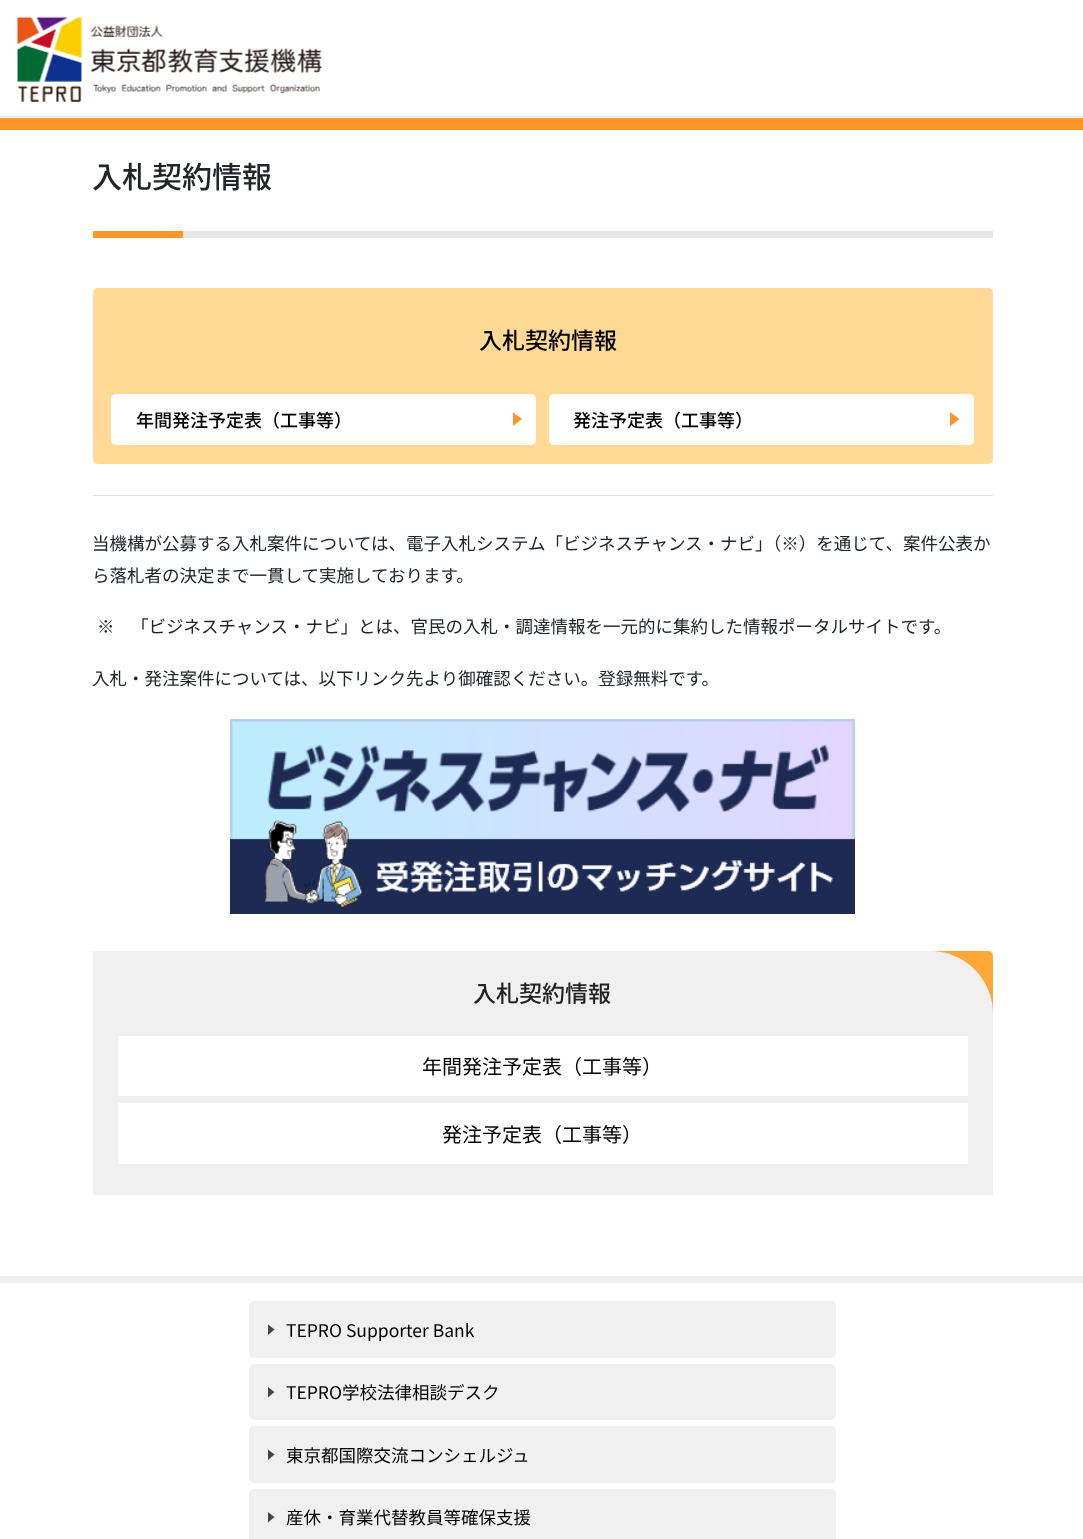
<svg xmlns="http://www.w3.org/2000/svg" width="1083" height="1539" viewBox="0 0 1083 1539">
  <rect width="100%" height="100%" fill="#ffffff"/>
  <image x="17" y="16" width="305" height="86" href="img1.png"/>
  <rect x="0" y="116" width="1083" height="1" fill="#e0e0e0"/>
  <rect x="0" y="118" width="1083" height="12" fill="#ff952b"/>
  <text x="92" y="188" font-family="Noto Sans JP" font-size="30" font-weight="500" fill="#212529">入札契約情報</text>
  <rect x="93" y="231" width="90" height="7" fill="#ff952b"/>
  <rect x="183" y="231" width="810" height="7" fill="#e5e5e5"/>
  <rect x="93" y="288" width="900" height="176" rx="5" fill="#ffd995"/>
  <text x="479" y="349" font-family="Noto Sans JP" font-size="23" font-weight="500" fill="#000000">入札契約情報</text>
  <rect x="111" y="394" width="425" height="51" rx="5" fill="#ffffff"/>
  <text x="136" y="427" font-family="Noto Sans JP" font-size="18" font-weight="500" fill="#000000">年間発注予定表（工事等）</text>
  <path d="M513 426V412.5L522 419Z" fill="#ff952b"/>
  <rect x="549" y="394" width="425" height="51" rx="5" fill="#ffffff"/>
  <text x="573" y="427" font-family="Noto Sans JP" font-size="18" font-weight="500" fill="#000000">発注予定表（工事等）</text>
  <path d="M950.5 426H950V412L959.5 419Z" fill="#ff952b"/>
  <rect x="93" y="495" width="900" height="1" fill="#e0e0e0"/>
  <text x="92" y="550" font-family="Noto Sans JP" font-size="17.5" fill="#212529">当機構が公募する入札案件については、電子入札システム「ビジネスチャンス・ナビ」（※）を通じて、案件公表か</text>
  <text x="92" y="582" font-family="Noto Sans JP" font-size="17.5" fill="#212529">ら落札者の決定まで一貫して実施しております。</text>
  <text x="97" y="633" font-family="Noto Sans JP" font-size="17.5" fill="#212529">※</text>
  <text x="131" y="633" font-family="Noto Sans JP" font-size="17.5" fill="#212529">「ビジネスチャンス・ナビ」とは、官民の入札・調達情報を一元的に集約した情報ポータルサイトです。</text>
  <text x="92" y="685" font-family="Noto Sans JP" font-size="17.5" fill="#212529">入札・発注案件については、以下リンク先より御確認ください。登録無料です。</text>
  <image x="230" y="719" width="625" height="195" href="img2.png"/>
  <rect x="93" y="951" width="900" height="244" rx="5" fill="#ffa734"/>
  <path d="M93 951H930C965 951 993 979 993 1014V1195H93Z" fill="#f0f0f0"/>
  <text x="473" y="1002" font-family="Noto Sans JP" font-size="23" font-weight="500" fill="#222222">入札契約情報</text>
  <rect x="118" y="1036" width="850" height="60" fill="#ffffff"/>
  <text x="422" y="1074" font-family="Noto Sans JP" font-size="20" fill="#000000">年間発注予定表（工事等）</text>
  <rect x="118" y="1103" width="850" height="61" fill="#ffffff"/>
  <text x="442" y="1142" font-family="Noto Sans JP" font-size="20" fill="#000000">発注予定表（工事等）</text>
  <rect x="0" y="1276" width="1083" height="7" fill="#f0f0f0"/>
  <rect x="249" y="1301" width="587" height="57" rx="5" fill="#f0f0f0"/>
  <path d="M268 1324.5V1335L274.5 1329.5Z" fill="#444444"/>
  <text x="286" y="1337" font-family="Noto Sans JP" font-size="17.5" fill="#000000">TEPRO Supporter Bank</text>
  <rect x="249" y="1364" width="587" height="56" rx="5" fill="#f0f0f0"/>
  <path d="M268 1387V1397.5L274.5 1392Z" fill="#444444"/>
  <text x="286" y="1399" font-family="Noto Sans JP" font-size="17.5" fill="#000000">TEPRO学校法律相談デスク</text>
  <rect x="249" y="1426" width="587" height="57" rx="5" fill="#f0f0f0"/>
  <path d="M268 1449.5V1460L274.5 1454.5Z" fill="#444444"/>
  <text x="286" y="1462" font-family="Noto Sans JP" font-size="17.5" fill="#000000">東京都国際交流コンシェルジュ</text>
  <rect x="249" y="1489" width="587" height="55" rx="5" fill="#f0f0f0"/>
  <path d="M268 1512V1522.5L274.5 1517Z" fill="#444444"/>
  <text x="286" y="1524" font-family="Noto Sans JP" font-size="17.5" fill="#000000">産休・育業代替教員等確保支援</text>
</svg>
